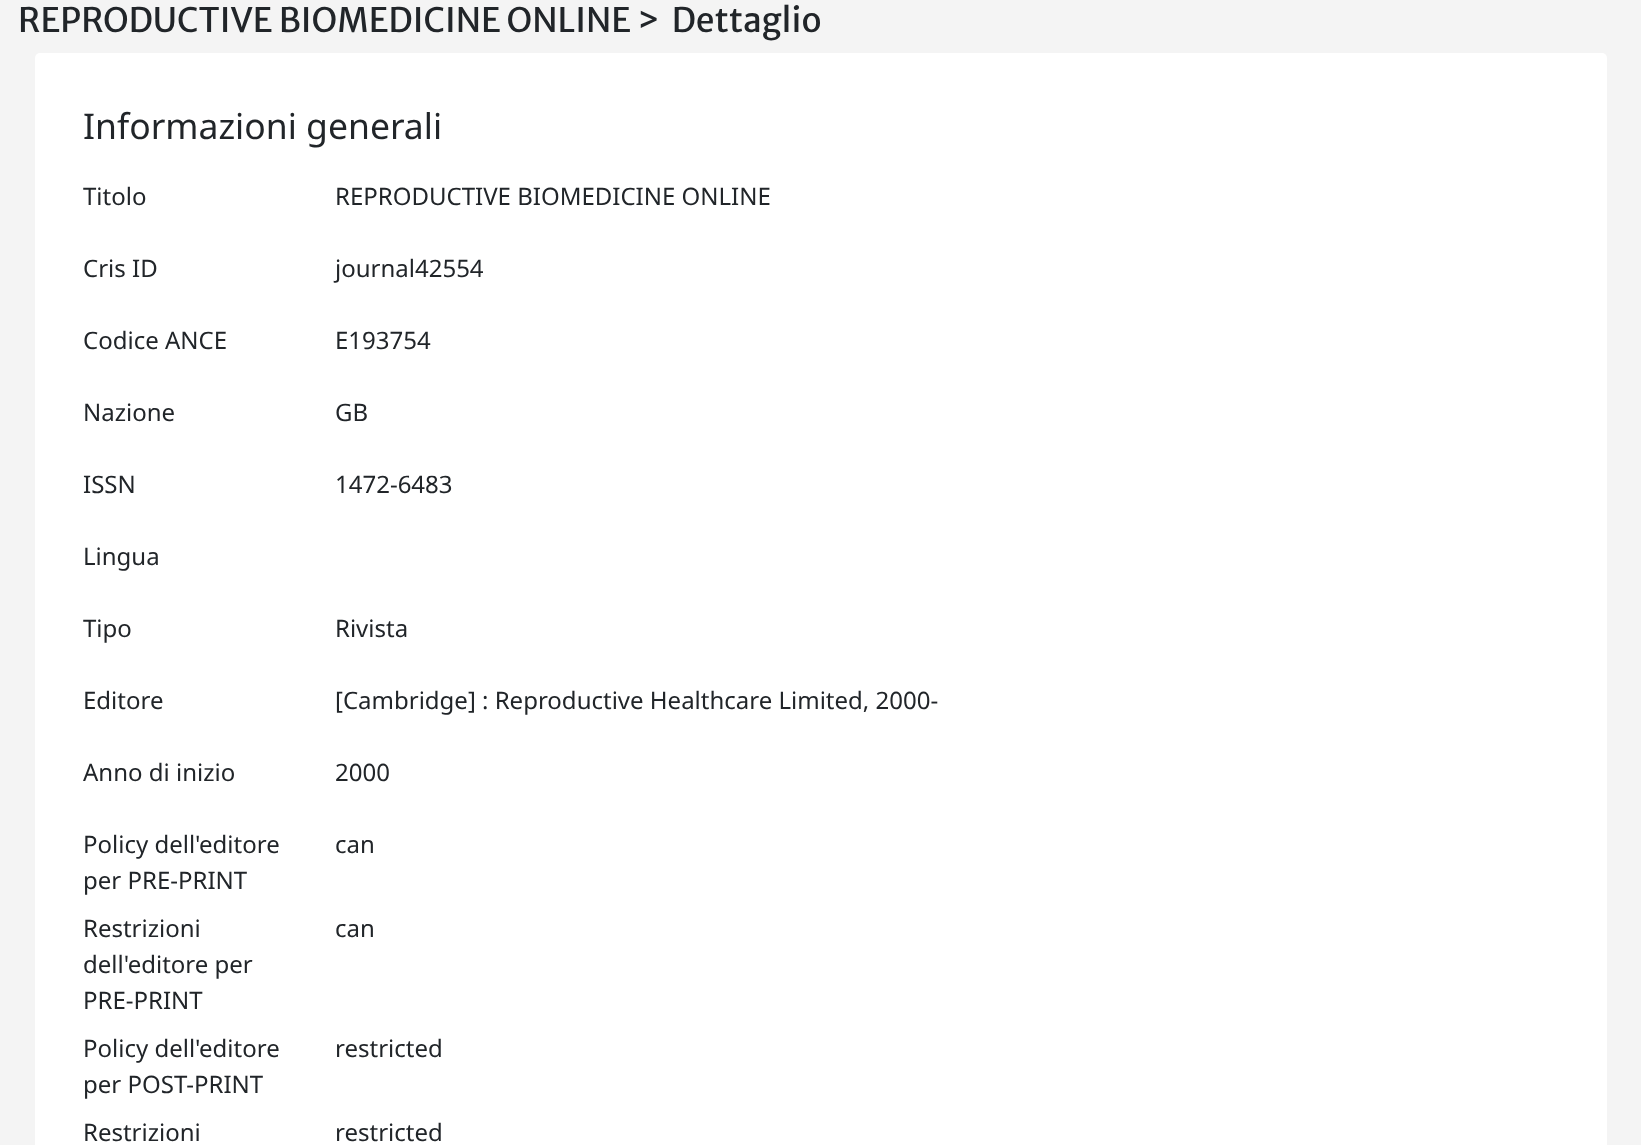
<svg xmlns="http://www.w3.org/2000/svg" width="1641" height="1145" viewBox="0 0 1641 1145">
  <rect width="100%" height="100%" fill="#f4f4f4"/>
  <text x="18" y="32" font-family="Merriweather Sans" font-size="33.6" fill="#212529" xml:space="preserve">REPRODUCTIVE BIOMEDICINE ONLINE &gt;  Dettaglio</text>
  <rect x="35" y="53" width="1572" height="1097" rx="5" fill="#ffffff"/>
  <text x="83" y="139" font-family="Noto Sans" font-size="35.5" fill="#212529">Informazioni generali</text>
  <text x="83" y="205" font-family="Noto Sans" font-size="24" fill="#212529">Titolo</text>
  <text x="335" y="205" font-family="Noto Sans" font-size="24" fill="#212529">REPRODUCTIVE BIOMEDICINE ONLINE</text>
  <text x="83" y="277" font-family="Noto Sans" font-size="24" fill="#212529">Cris ID</text>
  <text x="335" y="277" font-family="Noto Sans" font-size="24" fill="#212529">journal42554</text>
  <text x="83" y="349" font-family="Noto Sans" font-size="24" fill="#212529">Codice ANCE</text>
  <text x="335" y="349" font-family="Noto Sans" font-size="24" fill="#212529">E193754</text>
  <text x="83" y="421" font-family="Noto Sans" font-size="24" fill="#212529">Nazione</text>
  <text x="335" y="421" font-family="Noto Sans" font-size="24" fill="#212529">GB</text>
  <text x="83" y="493" font-family="Noto Sans" font-size="24" fill="#212529">ISSN</text>
  <text x="335" y="493" font-family="Noto Sans" font-size="24" fill="#212529">1472-6483</text>
  <text x="83" y="565" font-family="Noto Sans" font-size="24" fill="#212529">Lingua</text>
  <text x="83" y="637" font-family="Noto Sans" font-size="24" fill="#212529">Tipo</text>
  <text x="335" y="637" font-family="Noto Sans" font-size="24" fill="#212529">Rivista</text>
  <text x="83" y="709" font-family="Noto Sans" font-size="24" fill="#212529">Editore</text>
  <text x="335" y="709" font-family="Noto Sans" font-size="24" fill="#212529">[Cambridge] : Reproductive Healthcare Limited, 2000-</text>
  <text x="83" y="781" font-family="Noto Sans" font-size="24" fill="#212529">Anno di inizio</text>
  <text x="335" y="781" font-family="Noto Sans" font-size="24" fill="#212529">2000</text>
  <text x="83" y="853" font-family="Noto Sans" font-size="24" fill="#212529">Policy dell'editore</text>
  <text x="83" y="889" font-family="Noto Sans" font-size="24" fill="#212529">per PRE-PRINT</text>
  <text x="335" y="853" font-family="Noto Sans" font-size="24" fill="#212529">can</text>
  <text x="83" y="937" font-family="Noto Sans" font-size="24" fill="#212529">Restrizioni</text>
  <text x="83" y="973" font-family="Noto Sans" font-size="24" fill="#212529">dell'editore per</text>
  <text x="83" y="1009" font-family="Noto Sans" font-size="24" fill="#212529">PRE-PRINT</text>
  <text x="335" y="937" font-family="Noto Sans" font-size="24" fill="#212529">can</text>
  <text x="83" y="1057" font-family="Noto Sans" font-size="24" fill="#212529">Policy dell'editore</text>
  <text x="83" y="1093" font-family="Noto Sans" font-size="24" fill="#212529">per POST-PRINT</text>
  <text x="335" y="1057" font-family="Noto Sans" font-size="24" fill="#212529">restricted</text>
  <text x="83" y="1141" font-family="Noto Sans" font-size="24" fill="#212529">Restrizioni</text>
  <text x="335" y="1141" font-family="Noto Sans" font-size="24" fill="#212529">restricted</text>
</svg>
